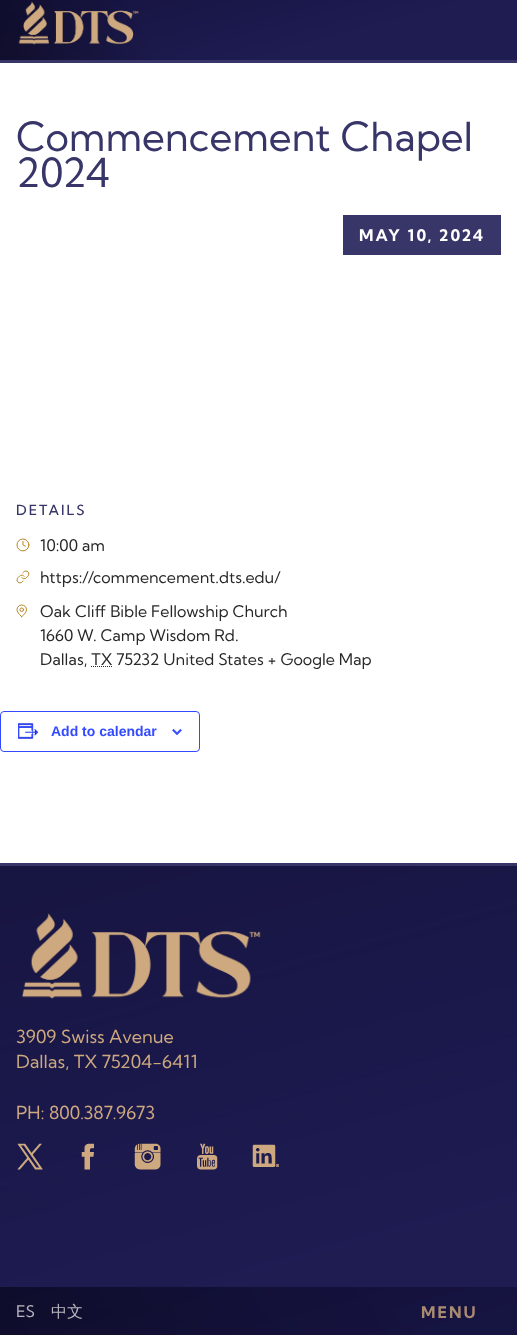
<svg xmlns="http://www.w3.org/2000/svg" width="517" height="1335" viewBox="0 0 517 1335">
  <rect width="100%" height="100%" fill="#ffffff"/>
  <text x="16" y="151" font-family="Kumbh Sans" font-size="40" fill="#383568">Commencement Chapel</text>
  <text x="16" y="187" font-family="Kumbh Sans" font-size="40" fill="#383568">2024</text>
  <rect x="343" y="215" width="158" height="40" fill="#383568"/>
  <text x="359" y="241" font-family="Kumbh Sans" font-size="16" font-weight="bold" letter-spacing="2" fill="#ffffff">MAY 10, 2024</text>
  <text x="16" y="515" font-family="Kumbh Sans" font-size="14" font-weight="500" letter-spacing="2" fill="#383568">DETAILS</text>
  <image x="16" y="538" width="14" height="14" href="img1.png"/>
  <text x="40" y="551" font-family="Kumbh Sans" font-size="16" fill="#282828">10:00 am</text>
  <image x="16" y="570" width="14" height="14" href="img2.png"/>
  <text x="40" y="583" font-family="Kumbh Sans" font-size="16" fill="#282828">https://commencement.dts.edu/</text>
  <image x="16" y="604" width="11" height="14" href="img3.png"/>
  <text x="40" y="617" font-family="Kumbh Sans" font-size="16" fill="#282828">Oak Cliff Bible Fellowship Church</text>
  <text x="40" y="641" font-family="Kumbh Sans" font-size="16" fill="#282828">1660 W. Camp Wisdom Rd.</text>
  <text x="40" y="665" font-family="Kumbh Sans" font-size="16" fill="#282828">Dallas, TX 75232 United States + Google Map</text>
  <path d="M91 666.5H112.5" fill="none" stroke="#282828" stroke-dasharray="1 1"/>
  <rect x="0.5" y="711.5" width="199" height="40" rx="3.5" fill="none" stroke="#334aff"/>
  <image x="18" y="723" width="21" height="16" href="img4.png"/>
  <text x="51" y="736" font-family="Liberation Sans" font-size="14" font-weight="bold" fill="#334aff">Add to calendar</text>
  <image x="172" y="729" width="10" height="6" href="img5.png"/>
  <rect x="0" y="863" width="517" height="3" fill="#383668"/>
  <image x="0" y="866" width="517" height="421" href="img6.png"/>
  <image x="21" y="913" width="240" height="86" href="img7.png"/>
  <text x="16" y="1043" font-family="Kumbh Sans" font-size="18" fill="#cea97f">3909 Swiss Avenue</text>
  <text x="16" y="1068" font-family="Kumbh Sans" font-size="18" fill="#cea97f">Dallas, TX 75204-6411</text>
  <text x="16" y="1119" font-family="Kumbh Sans" font-size="18" fill="#cea97f">PH: 800.387.9673</text>
  <image x="17" y="1143" width="26" height="27" href="img8.png"/>
  <image x="81" y="1143" width="13" height="27" href="img9.png"/>
  <image x="134" y="1143" width="27" height="27" href="img10.png"/>
  <image x="197" y="1143" width="21" height="27" href="img11.png"/>
  <image x="252" y="1144" width="27" height="23" href="img12.png"/>
  <image x="0" y="0" width="517" height="60" href="img13.png"/>
  <rect x="0" y="60" width="517" height="3" fill="#383668"/>
  <image x="18" y="1" width="121" height="44" href="img14.png"/>
  <image x="0" y="1287" width="517" height="48" href="img15.png"/>
  <text x="16" y="1317" font-family="Kumbh Sans" font-size="16" fill="#b7b7c0">ES</text>
  <text x="51" y="1317" font-family="WenQuanYi Zen Hei" font-size="16" font-weight="500" fill="#b7b7c0">中文</text>
  <text x="421" y="1318" font-family="Kumbh Sans" font-size="16" font-weight="bold" letter-spacing="2" fill="#a98b72">MENU</text>
</svg>
